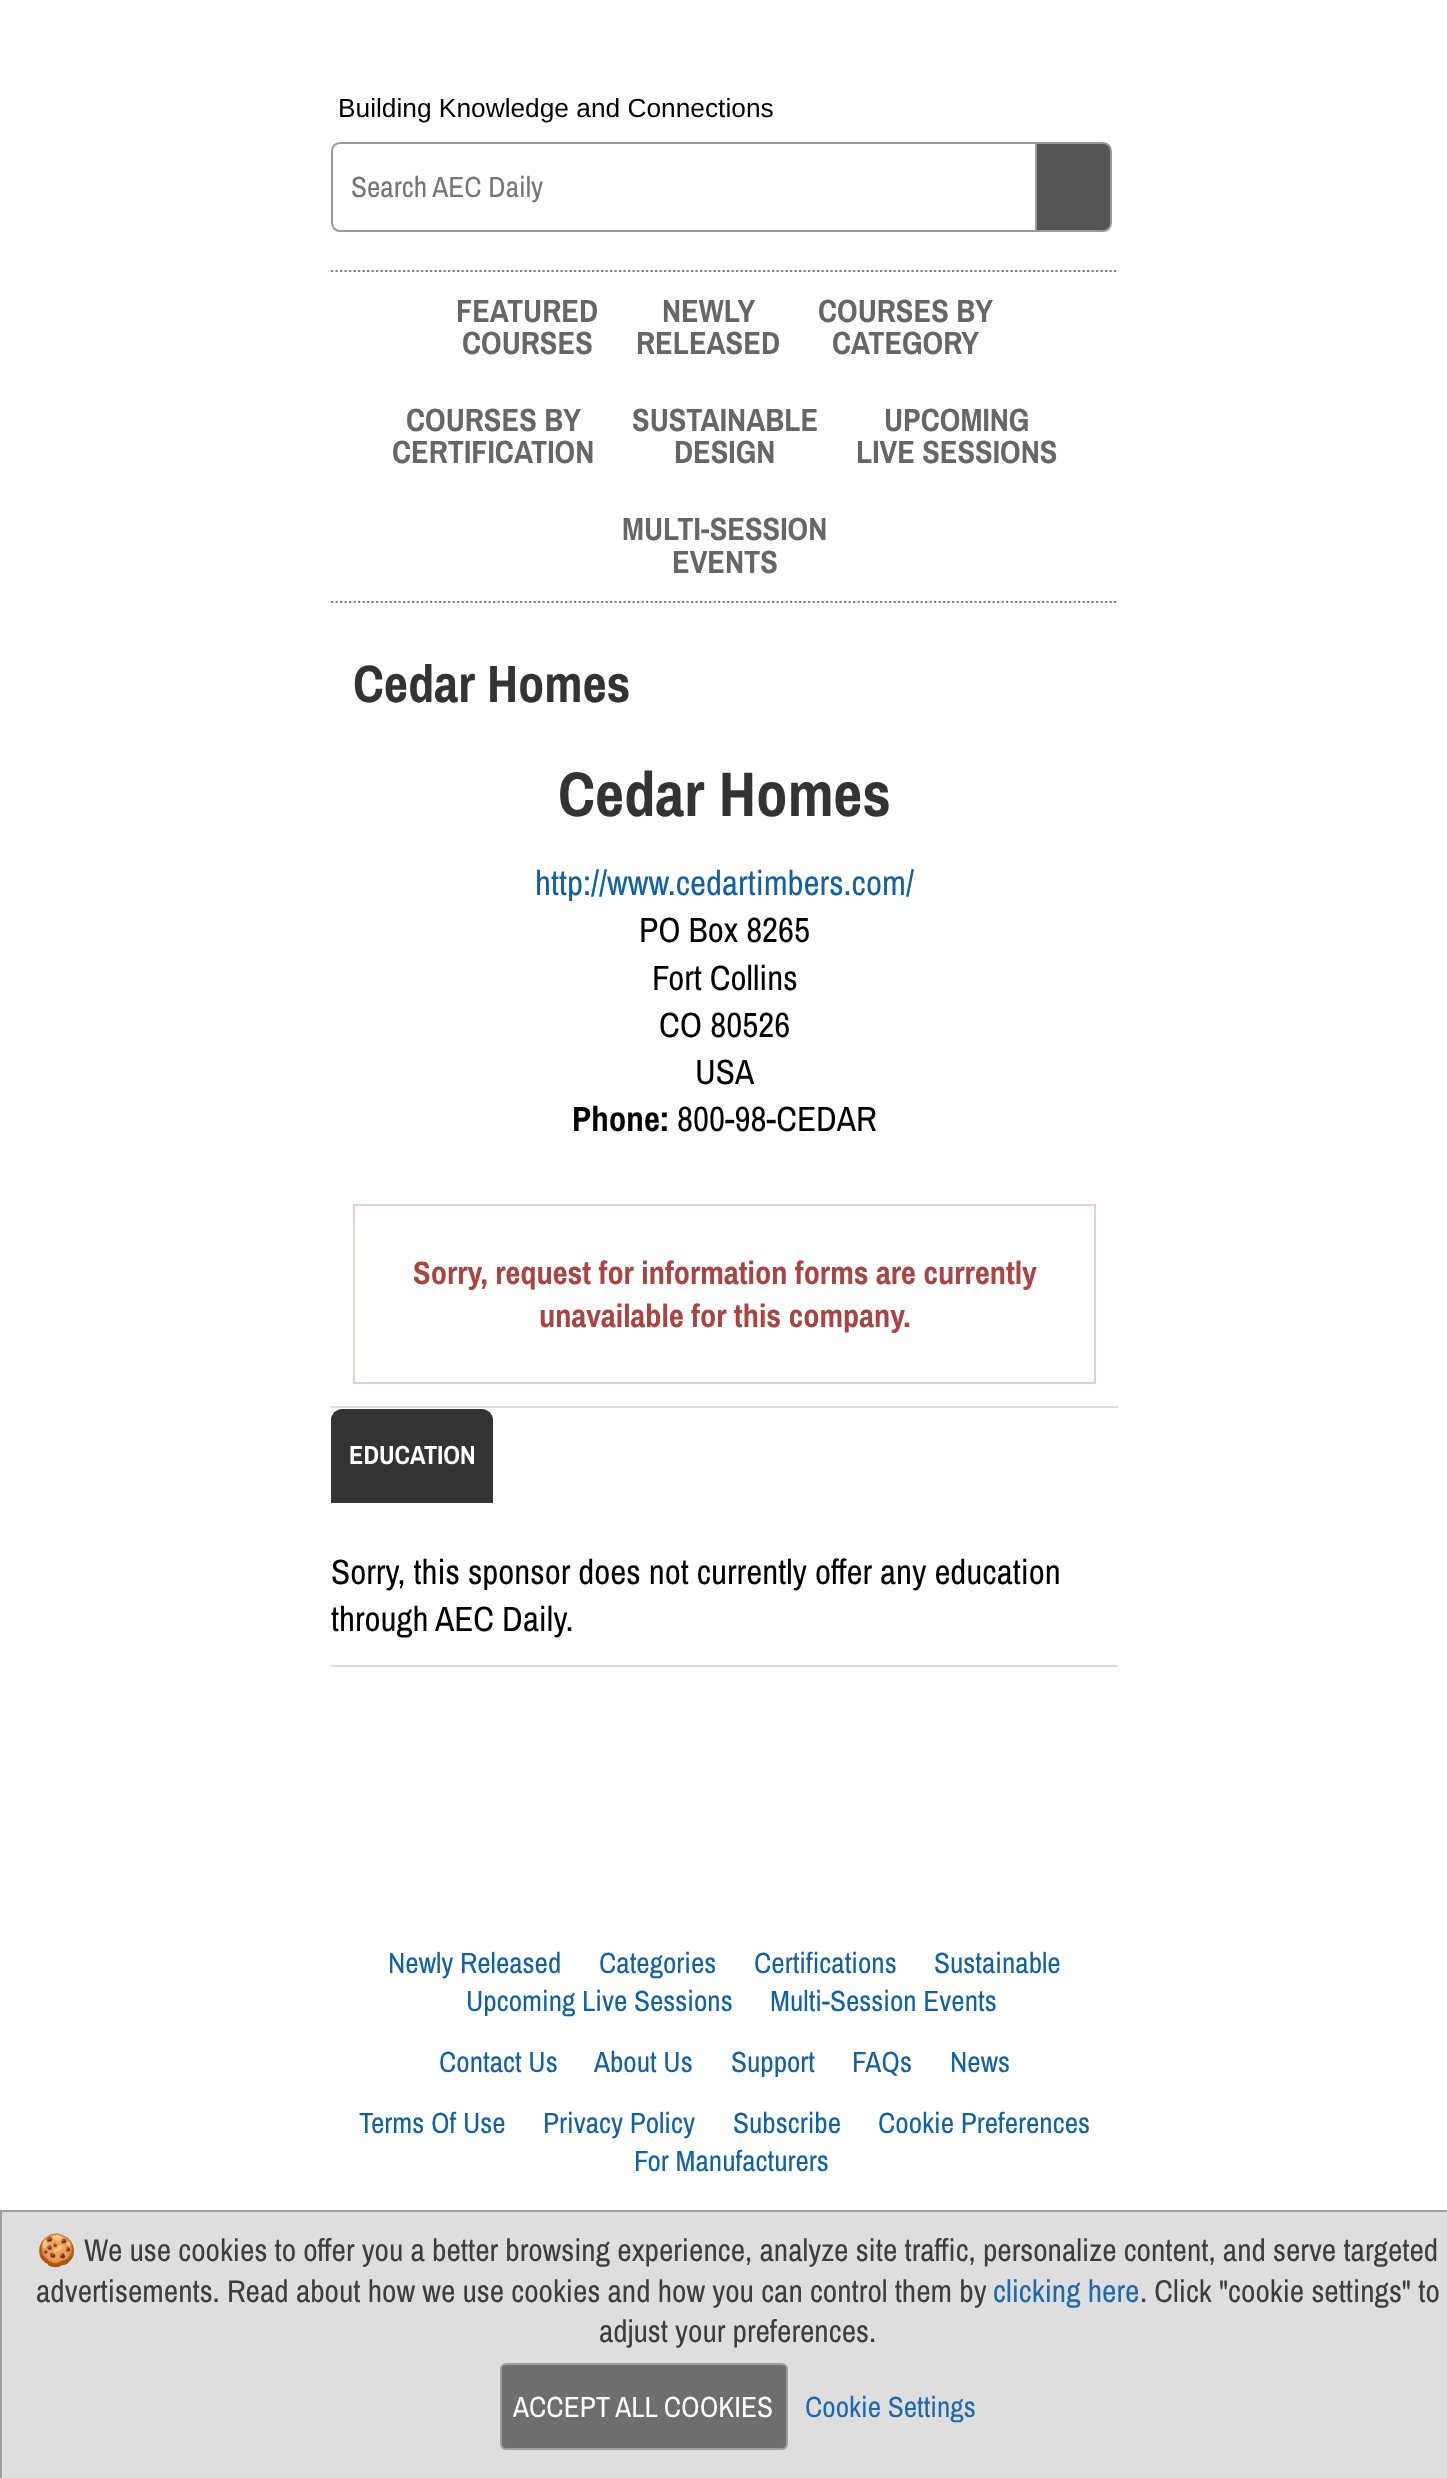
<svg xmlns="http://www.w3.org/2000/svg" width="1447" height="2478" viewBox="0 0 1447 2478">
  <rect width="100%" height="100%" fill="#ffffff"/>
  <text x="338" y="117" font-family="Liberation Sans" font-size="26.3" fill="#000000">Building Knowledge and Connections</text>
  <path d="M340 143H1036V231H340C335.5 231 332 227.5 332 223V151C332 146.5 335.5 143 340 143Z" fill="none" stroke="#999999" stroke-width="2"/>
  <text x="351" y="197" font-family="Archivo Narrow" font-size="29.25" fill="#757575">Search AEC Daily</text>
  <path d="M1036 143H1103C1107.5 143 1111 146.5 1111 151V223C1111 227.5 1107.5 231 1103 231H1036Z" fill="#555555" stroke="#999999" stroke-width="2"/>
  <path d="M331 271H1118" fill="none" stroke="#808080" stroke-width="2.2" stroke-dasharray="2.25 2.25"/>
  <path d="M331 602H1118" fill="none" stroke="#808080" stroke-width="2.2" stroke-dasharray="2.25 2.25"/>
  <text x="456" y="322" font-family="Archivo Narrow" font-size="32.25" font-weight="bold" fill="#666666">FEATURED</text>
  <text x="462" y="354" font-family="Archivo Narrow" font-size="32.25" font-weight="bold" fill="#666666">COURSES</text>
  <text x="662" y="322" font-family="Archivo Narrow" font-size="32.25" font-weight="bold" fill="#666666">NEWLY</text>
  <text x="636" y="354" font-family="Archivo Narrow" font-size="32.25" font-weight="bold" fill="#666666">RELEASED</text>
  <text x="818" y="322" font-family="Archivo Narrow" font-size="32.25" font-weight="bold" fill="#666666">COURSES BY</text>
  <text x="832" y="354" font-family="Archivo Narrow" font-size="32.25" font-weight="bold" fill="#666666">CATEGORY</text>
  <text x="406" y="431" font-family="Archivo Narrow" font-size="32.25" font-weight="bold" fill="#666666">COURSES BY</text>
  <text x="392" y="463" font-family="Archivo Narrow" font-size="32.25" font-weight="bold" fill="#666666">CERTIFICATION</text>
  <text x="632" y="431" font-family="Archivo Narrow" font-size="32.25" font-weight="bold" fill="#666666">SUSTAINABLE</text>
  <text x="674" y="463" font-family="Archivo Narrow" font-size="32.25" font-weight="bold" fill="#666666">DESIGN</text>
  <text x="884" y="431" font-family="Archivo Narrow" font-size="32.25" font-weight="bold" fill="#666666">UPCOMING</text>
  <text x="856" y="463" font-family="Archivo Narrow" font-size="32.25" font-weight="bold" fill="#666666">LIVE SESSIONS</text>
  <text x="622" y="540" font-family="Archivo Narrow" font-size="32.25" font-weight="bold" fill="#666666">MULTI-SESSION</text>
  <text x="672" y="573" font-family="Archivo Narrow" font-size="32.25" font-weight="bold" fill="#666666">EVENTS</text>
  <text x="353" y="702" font-family="Archivo Narrow" font-size="52.5" font-weight="bold" fill="#333333">Cedar Homes</text>
  <rect x="331" y="1406" width="787" height="2" fill="#dcdcdc"/>
  <text x="558" y="816" font-family="Archivo Narrow" font-size="63" font-weight="bold" fill="#333333">Cedar Homes</text>
  <text x="535" y="895" font-family="Archivo Narrow" font-size="35.1" fill="#1161a5">http://www.cedartimbers.com/</text>
  <text x="639" y="942" font-family="Archivo Narrow" font-size="35.1" fill="#000000">PO Box 8265</text>
  <text x="652" y="990" font-family="Archivo Narrow" font-size="35.1" fill="#000000">Fort Collins</text>
  <text x="659" y="1037" font-family="Archivo Narrow" font-size="35.1" fill="#000000">CO 80526</text>
  <text x="695" y="1084" font-family="Archivo Narrow" font-size="35.1" fill="#000000">USA</text>
  <text x="572" y="1131" font-family="Archivo Narrow" font-size="35.1" font-weight="bold" fill="#000000">Phone:</text>
  <text x="677" y="1131" font-family="Archivo Narrow" font-size="35.1" fill="#000000">800-98-CEDAR</text>
  <rect x="354" y="1205" width="741" height="178" fill="none" stroke="#ebccd1" stroke-width="2"/>
  <text x="413" y="1284" font-family="Archivo Narrow" font-size="32.4" font-weight="bold" fill="#a94442">Sorry, request for information forms are currently</text>
  <text x="539" y="1327" font-family="Archivo Narrow" font-size="32.4" font-weight="bold" fill="#a94442">unavailable for this company.</text>
  <path d="M342 1409H482C488 1409 493 1414 493 1420V1503H331V1420C331 1414 336 1409 342 1409Z" fill="#333333"/>
  <text x="349" y="1464" font-family="Archivo Narrow" font-size="26.3" font-weight="bold" fill="#ffffff">EDUCATION</text>
  <rect x="331" y="1665" width="787" height="2" fill="#dcdcdc"/>
  <text x="331" y="1584" font-family="Archivo Narrow" font-size="35.1" fill="#000000">Sorry, this sponsor does not currently offer any education</text>
  <text x="331" y="1631" font-family="Archivo Narrow" font-size="35.1" fill="#000000">through AEC Daily.</text>
  <text x="388" y="1973" font-family="Archivo Narrow" font-size="29.25" fill="#1161a5">Newly Released</text>
  <text x="599" y="1973" font-family="Archivo Narrow" font-size="29.25" fill="#1161a5">Categories</text>
  <text x="754" y="1973" font-family="Archivo Narrow" font-size="29.25" fill="#1161a5">Certifications</text>
  <text x="934" y="1973" font-family="Archivo Narrow" font-size="29.25" fill="#1161a5">Sustainable</text>
  <text x="466" y="2011" font-family="Archivo Narrow" font-size="29.25" fill="#1161a5">Upcoming Live Sessions</text>
  <text x="770" y="2011" font-family="Archivo Narrow" font-size="29.25" fill="#1161a5">Multi-Session Events</text>
  <text x="439" y="2072" font-family="Archivo Narrow" font-size="29.25" fill="#1161a5">Contact Us</text>
  <text x="594" y="2072" font-family="Archivo Narrow" font-size="29.25" fill="#1161a5">About Us</text>
  <text x="731" y="2072" font-family="Archivo Narrow" font-size="29.25" fill="#1161a5">Support</text>
  <text x="852" y="2072" font-family="Archivo Narrow" font-size="29.25" fill="#1161a5">FAQs</text>
  <text x="950" y="2072" font-family="Archivo Narrow" font-size="29.25" fill="#1161a5">News</text>
  <text x="359" y="2133" font-family="Archivo Narrow" font-size="29.25" fill="#1161a5">Terms Of Use</text>
  <text x="543" y="2133" font-family="Archivo Narrow" font-size="29.25" fill="#1161a5">Privacy Policy</text>
  <text x="733" y="2133" font-family="Archivo Narrow" font-size="29.25" fill="#1161a5">Subscribe</text>
  <text x="878" y="2133" font-family="Archivo Narrow" font-size="29.25" fill="#1161a5">Cookie Preferences</text>
  <text x="634" y="2171" font-family="Archivo Narrow" font-size="29.25" fill="#1161a5">For Manufacturers</text>
  <rect x="2" y="2212" width="1445" height="266" fill="#dedede"/>
  <rect x="0" y="2210" width="1447" height="2" fill="#9e9e9e"/>
  <rect x="0" y="2210" width="2" height="268" fill="#9e9e9e"/>
  <text x="37" y="2261" font-family="Noto Color Emoji" font-size="31.5" fill="#3d3d3d">🍪</text>
  <text x="84" y="2261" font-family="Archivo Narrow" font-size="31.5" fill="#3d3d3d">We use cookies to offer you a better browsing experience, analyze site traffic, personalize content, and serve targeted</text>
  <text x="36" y="2302" font-family="Archivo Narrow" font-size="31.5" fill="#3d3d3d">advertisements. Read about how we use cookies and how you can control them by</text>
  <text x="993" y="2302" font-family="Archivo Narrow" font-size="31.5" fill="#1d69aa">clicking here</text>
  <text x="1140" y="2302" font-family="Archivo Narrow" font-size="31.5" fill="#3d3d3d">. Click "cookie settings" to</text>
  <text x="599" y="2342" font-family="Archivo Narrow" font-size="31.5" fill="#3d3d3d">adjust your preferences.</text>
  <rect x="501" y="2364" width="286" height="85" rx="5" fill="#6e6e6e" stroke="#9e9e9e" stroke-width="2"/>
  <text x="513" y="2417" font-family="Archivo Narrow" font-size="29.25" fill="#ffffff">ACCEPT ALL COOKIES</text>
  <text x="805" y="2417" font-family="Archivo Narrow" font-size="29.25" fill="#1d69aa">Cookie Settings</text>
</svg>
